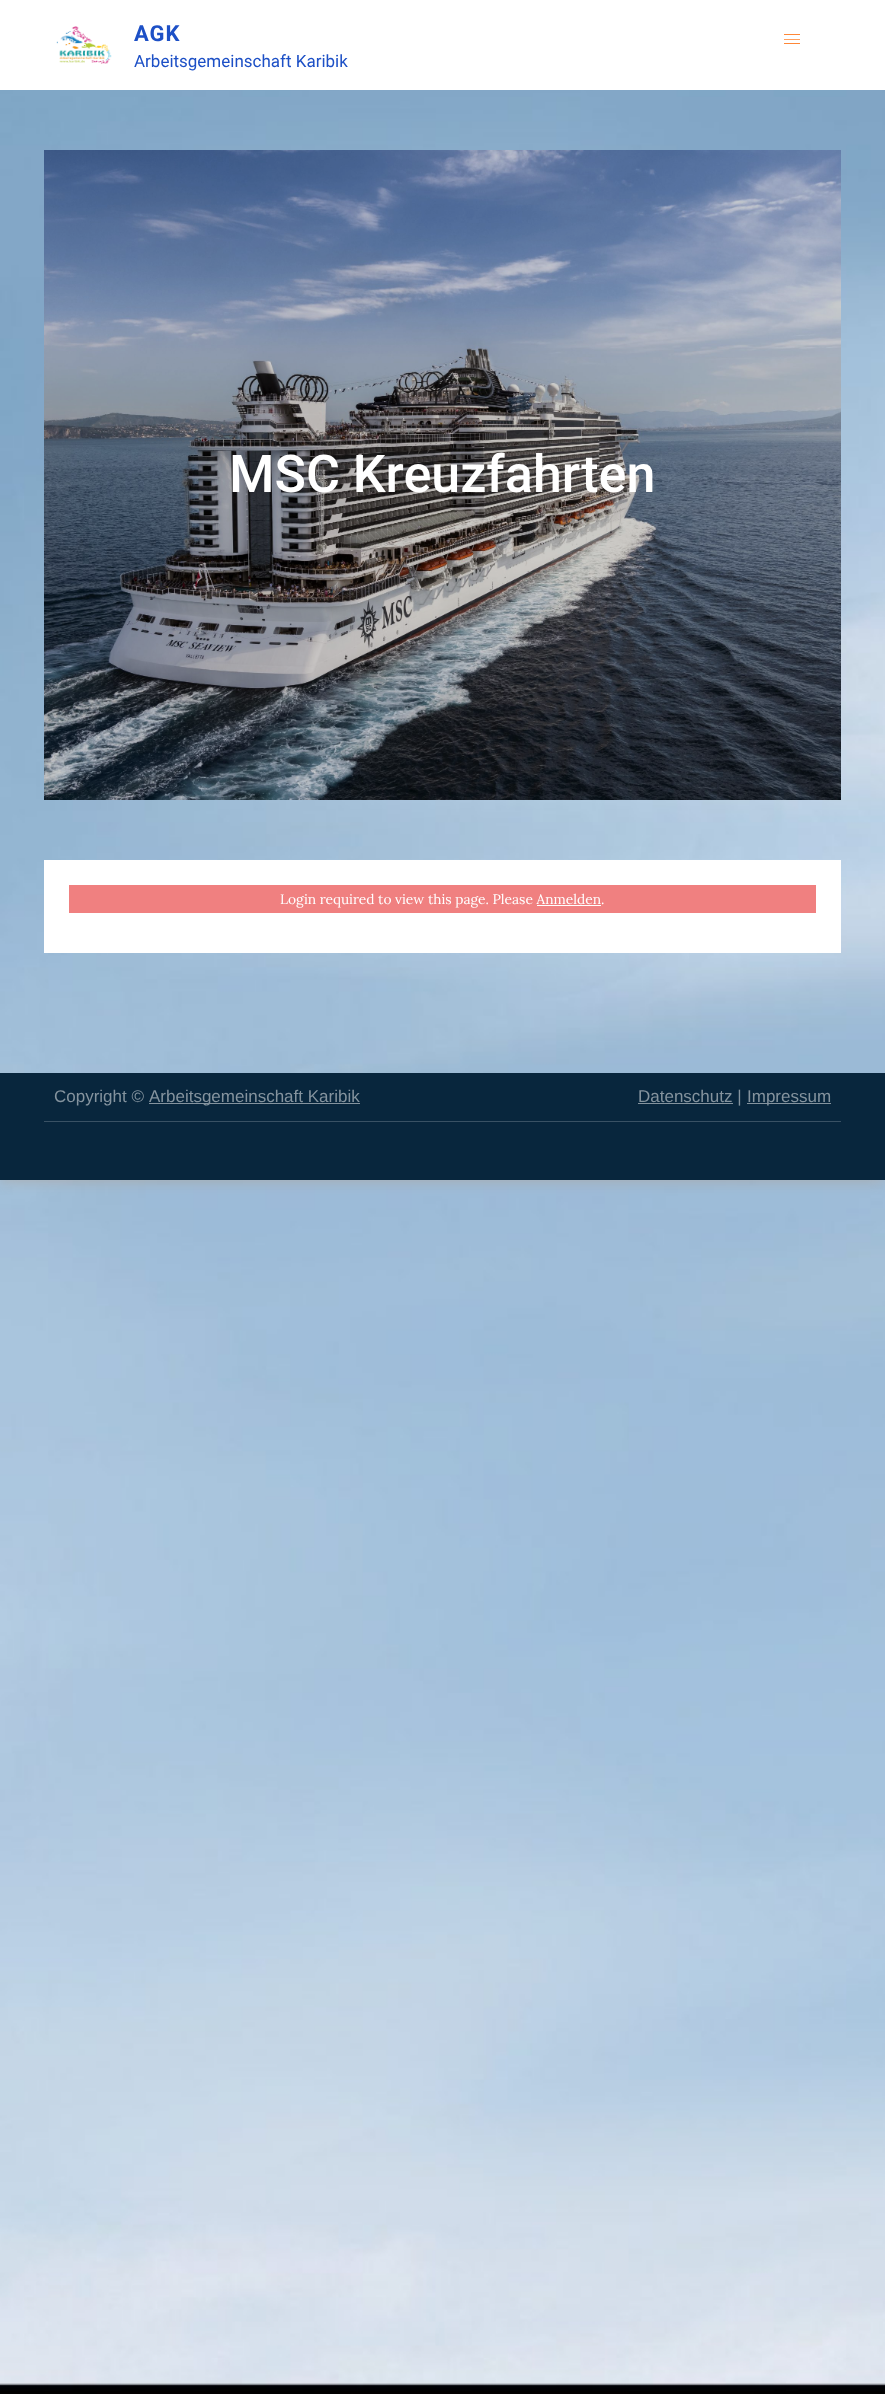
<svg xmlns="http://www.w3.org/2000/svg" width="885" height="2394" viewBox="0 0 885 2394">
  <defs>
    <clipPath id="clip1"><rect x="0" y="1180" width="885" height="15"/></clipPath>
    <filter id="blur1" x="-50%" y="-200%" width="200%" height="500%"><feGaussianBlur stdDeviation="7.5"/></filter>
  </defs>
  <rect width="100%" height="100%" fill="#ffffff"/>
  <image x="0" y="90" width="885" height="2304" href="img1.png"/>
  <g clip-path="url(#clip1)">
    <rect x="0" y="0" width="885" height="1180" fill="#aaaaaa" filter="url(#blur1)"/>
  </g>
  <image x="56" y="26" width="56" height="38" href="img2.png"/>
  <text x="134" y="41" font-family="Roboto" font-size="22" font-weight="bold" letter-spacing="1" fill="#1d50c6">AGK</text>
  <text x="134" y="67" font-family="Roboto" font-size="17" fill="#1d50c6">Arbeitsgemeinschaft Karibik</text>
  <rect x="784" y="34" width="16" height="1" fill="#ff8737"/>
  <rect x="784" y="39" width="16" height="1" fill="#ff9f5f"/>
  <rect x="784" y="43" width="16" height="1" fill="#ff8737"/>
  <image x="44" y="150" width="797" height="650" href="img3.png"/>
  <text x="229" y="492" font-family="Roboto" font-size="52" font-weight="500" fill="#ffffff">MSC Kreuzfahrten</text>
  <rect x="44" y="860" width="797" height="93" fill="#ffffff"/>
  <rect x="69" y="885" width="747" height="28" fill="#f08080"/>
  <text x="280" y="904" font-family="Lora" font-size="13.75" fill="#ffffff">Login required to view this page. Please Anmelden.</text>
  <rect x="537" y="905" width="64" height="1" fill="#ffffff"/>
  <rect x="0" y="1073" width="885" height="107" fill="#08263d"/>
  <text x="54" y="1102" font-family="Liberation Sans" font-size="17" fill="#84939e">Copyright ©</text>
  <rect x="149" y="1103" width="211" height="1" fill="#84939e"/>
  <text x="149" y="1102" font-family="Liberation Sans" font-size="17" fill="#84939e">Arbeitsgemeinschaft Karibik</text>
  <rect x="638" y="1103" width="95" height="1" fill="#84939e"/>
  <text x="638" y="1102" font-family="Liberation Sans" font-size="17" fill="#84939e">Datenschutz |</text>
  <rect x="747" y="1103" width="84" height="1" fill="#84939e"/>
  <text x="747" y="1102" font-family="Liberation Sans" font-size="17" fill="#84939e">Impressum</text>
  <rect x="44" y="1121" width="797" height="1" fill="#395164"/>
</svg>
